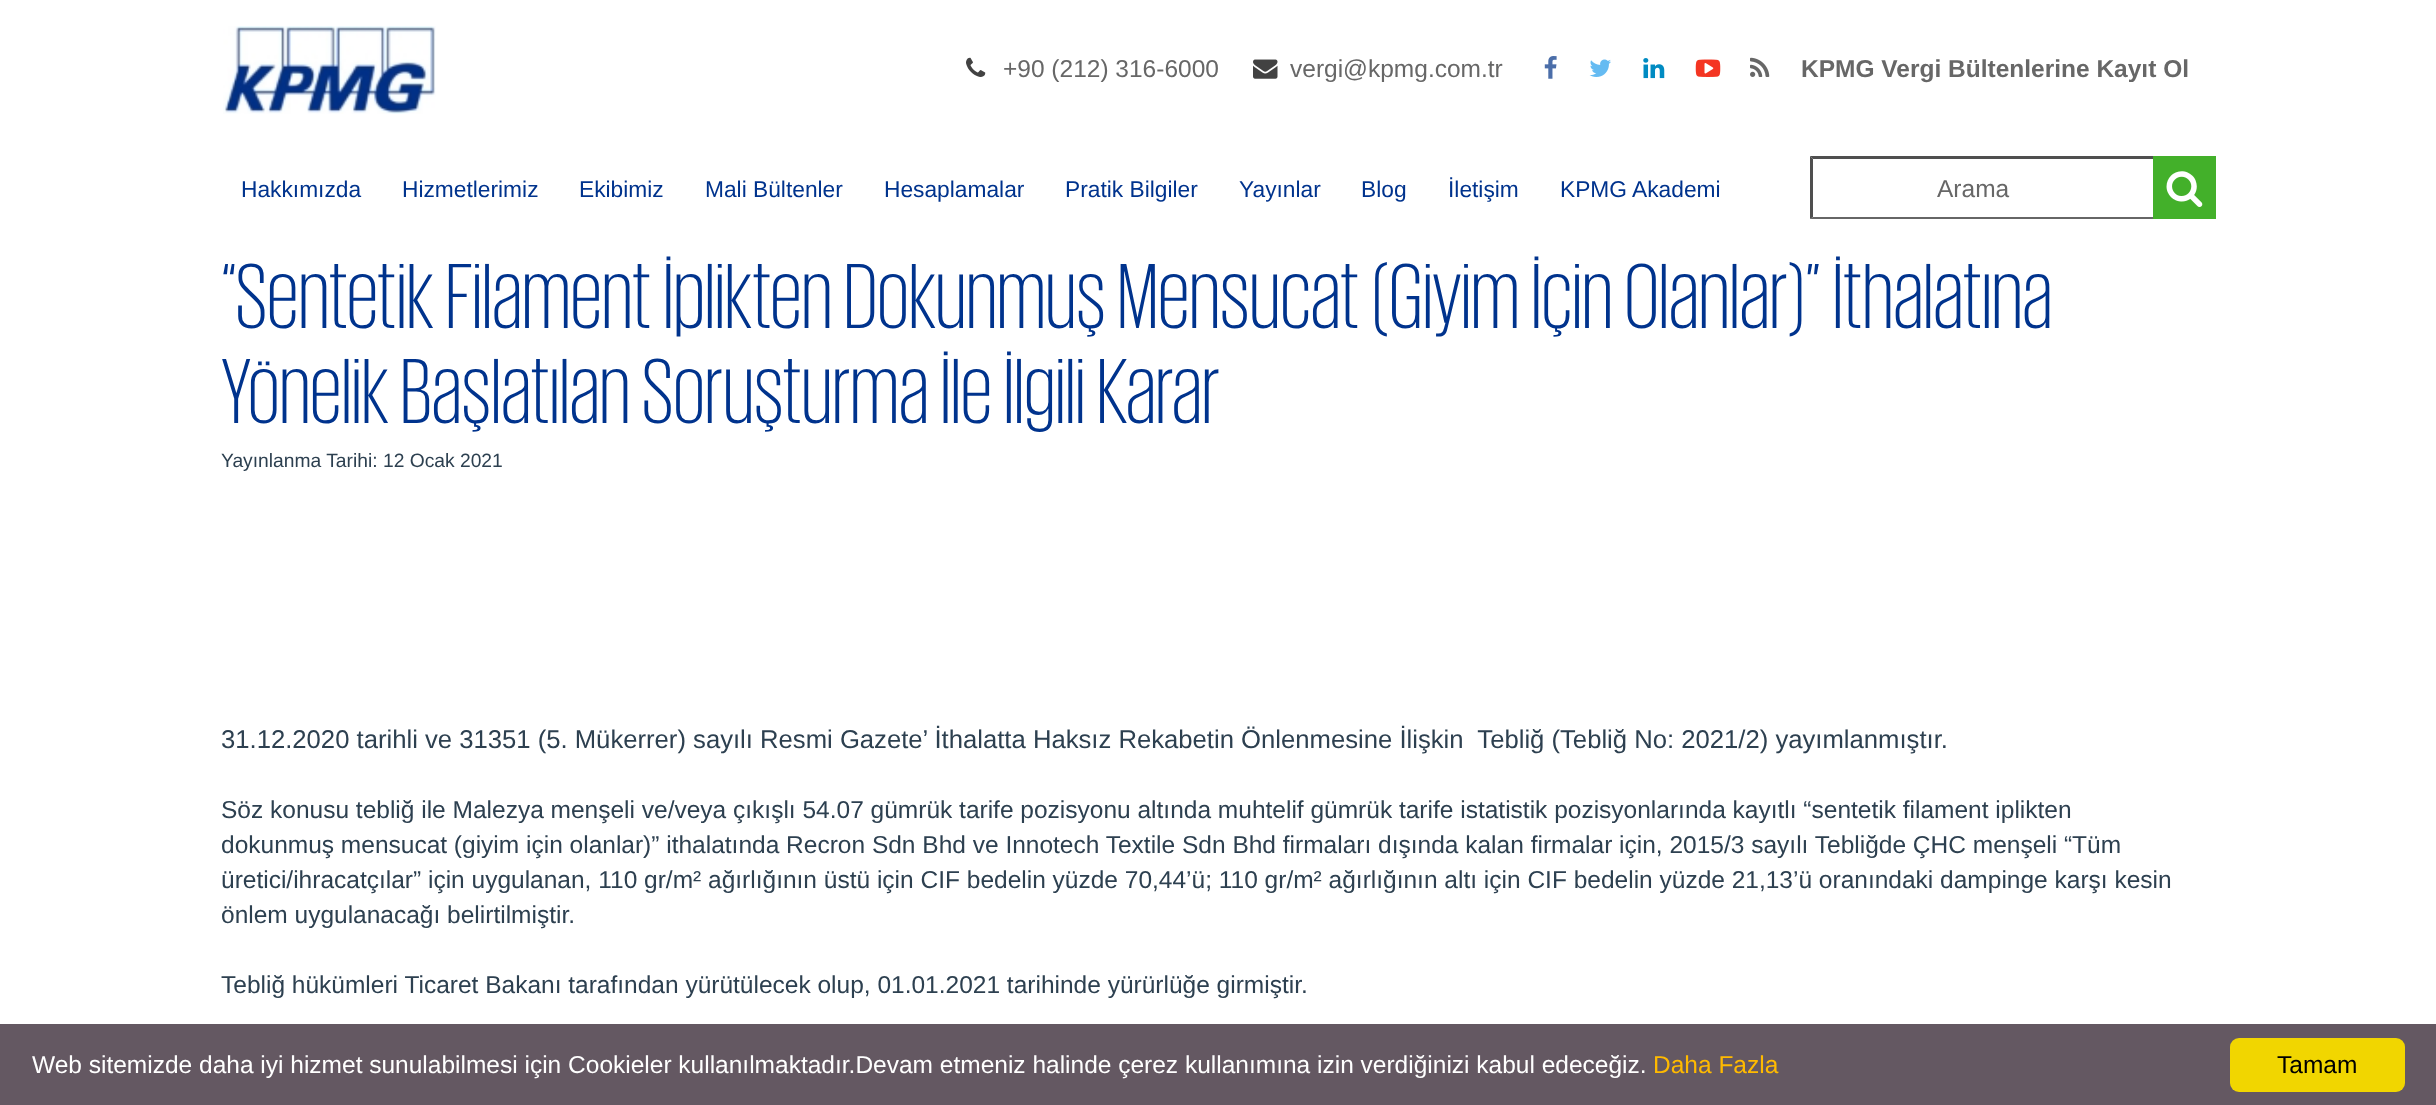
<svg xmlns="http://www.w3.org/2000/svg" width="2436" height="1105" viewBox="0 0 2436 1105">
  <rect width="100%" height="100%" fill="#ffffff"/>
  <image x="223" y="26" width="213" height="88" href="img1.png"/>
  <image x="966" y="57" width="20" height="20" href="img2.png"/>
  <text x="1003" y="77" font-family="Liberation Sans" font-size="24.5" fill="#676767">+90 (212) 316-6000</text>
  <image x="1253" y="59" width="25" height="20" href="img3.png"/>
  <text x="1290" y="77" font-family="Liberation Sans" font-size="24.5" fill="#676767">vergi@kpmg.com.tr</text>
  <image x="1544" y="56" width="13" height="23" href="img4.png"/>
  <image x="1589" y="59" width="22" height="18" href="img5.png"/>
  <image x="1643" y="58" width="22" height="21" href="img6.png"/>
  <image x="1695" y="59" width="26" height="18" href="img7.png"/>
  <image x="1750" y="57" width="20" height="20" href="img8.png"/>
  <text x="1801" y="77" font-family="Liberation Sans" font-size="24.5" font-weight="bold" fill="#676767">KPMG Vergi Bültenlerine Kayıt Ol</text>
  <text x="241" y="197" font-family="Liberation Sans" font-size="22.75" fill="#00338d">Hakkımızda</text>
  <text x="402" y="197" font-family="Liberation Sans" font-size="22.75" fill="#00338d">Hizmetlerimiz</text>
  <text x="579" y="197" font-family="Liberation Sans" font-size="22.75" fill="#00338d">Ekibimiz</text>
  <text x="705" y="197" font-family="Liberation Sans" font-size="22.75" fill="#00338d">Mali Bültenler</text>
  <text x="884" y="197" font-family="Liberation Sans" font-size="22.75" fill="#00338d">Hesaplamalar</text>
  <text x="1065" y="197" font-family="Liberation Sans" font-size="22.75" fill="#00338d">Pratik Bilgiler</text>
  <text x="1239" y="197" font-family="Liberation Sans" font-size="22.75" fill="#00338d">Yayınlar</text>
  <text x="1361" y="197" font-family="Liberation Sans" font-size="22.75" fill="#00338d">Blog</text>
  <text x="1448" y="197" font-family="Liberation Sans" font-size="22.75" fill="#00338d">İletişim</text>
  <text x="1560" y="197" font-family="Liberation Sans" font-size="22.75" fill="#00338d">KPMG Akademi</text>
  <path d="M1810 156H2216L2212 159H1813Z" fill="#4f4f4f"/>
  <path d="M2216 219H1810L1813 217H2212Z" fill="#666666"/>
  <path d="M1810 219V156L1813 159V217Z" fill="#4f4f4f"/>
  <text x="1937" y="197" font-family="Liberation Sans" font-size="24.5" fill="#676767">Arama</text>
  <rect x="2153" y="156" width="63" height="63" fill="#43b02a"/>
  <image x="2166" y="171" width="37" height="36" href="img9.png"/>
  <text x="221" y="328" font-family="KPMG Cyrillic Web" font-size="94.5" font-weight="300" fill="#00338d">“Sentetik Filament İplikten Dokunmuş Mensucat (Giyim İçin Olanlar)” İthalatına</text>
  <text x="221" y="423" font-family="KPMG Cyrillic Web" font-size="94.5" font-weight="300" fill="#00338d">Yönelik Başlatılan Soruşturma İle İlgili Karar</text>
  <text x="221" y="467" font-family="Liberation Sans" font-size="19.25" fill="#2d4050">Yayınlanma Tarihi: 12 Ocak 2021</text>
  <text x="221" y="748" font-family="Liberation Sans" font-size="25.67" fill="#2d4050" xml:space="preserve">31.12.2020 tarihli ve 31351 (5. Mükerrer) sayılı Resmi Gazete’ İthalatta Haksız Rekabetin Önlenmesine İlişkin  Tebliğ (Tebliğ No: 2021/2) yayımlanmıştır.</text>
  <text x="221" y="818" font-family="Liberation Sans" font-size="24.5" fill="#2d4050">Söz konusu tebliğ ile Malezya menşeli ve/veya çıkışlı 54.07 gümrük tarife pozisyonu altında muhtelif gümrük tarife istatistik pozisyonlarında kayıtlı “sentetik filament iplikten</text>
  <text x="221" y="853" font-family="Liberation Sans" font-size="24.5" fill="#2d4050">dokunmuş mensucat (giyim için olanlar)” ithalatında Recron Sdn Bhd ve Innotech Textile Sdn Bhd firmaları dışında kalan firmalar için, 2015/3 sayılı Tebliğde ÇHC menşeli “Tüm</text>
  <text x="221" y="888" font-family="Liberation Sans" font-size="24.5" fill="#2d4050">üretici/ihracatçılar” için uygulanan, 110 gr/m² ağırlığının üstü için CIF bedelin yüzde 70,44’ü; 110 gr/m² ağırlığının altı için CIF bedelin yüzde 21,13’ü oranındaki dampinge karşı kesin</text>
  <text x="221" y="923" font-family="Liberation Sans" font-size="24.5" fill="#2d4050">önlem uygulanacağı belirtilmiştir.</text>
  <text x="221" y="993" font-family="Liberation Sans" font-size="24.5" fill="#2d4050">Tebliğ hükümleri Ticaret Bakanı tarafından yürütülecek olup, 01.01.2021 tarihinde yürürlüğe girmiştir.</text>
  <rect x="0" y="1024" width="2436" height="81" fill="#645862"/>
  <text x="32" y="1073" font-family="Liberation Sans" font-size="24.5" fill="#ffffff">Web sitemizde daha iyi hizmet sunulabilmesi için Cookieler kullanılmaktadır.Devam etmeniz halinde çerez kullanımına izin verdiğinizi kabul edeceğiz.</text>
  <text x="1653" y="1073" font-family="Liberation Sans" font-size="24.5" fill="#ffba00">Daha Fazla</text>
  <rect x="2230" y="1038" width="175" height="54" rx="9" fill="#f1d600"/>
  <text x="2277" y="1073" font-family="Liberation Sans" font-size="24.5" fill="#000000">Tamam</text>
</svg>
